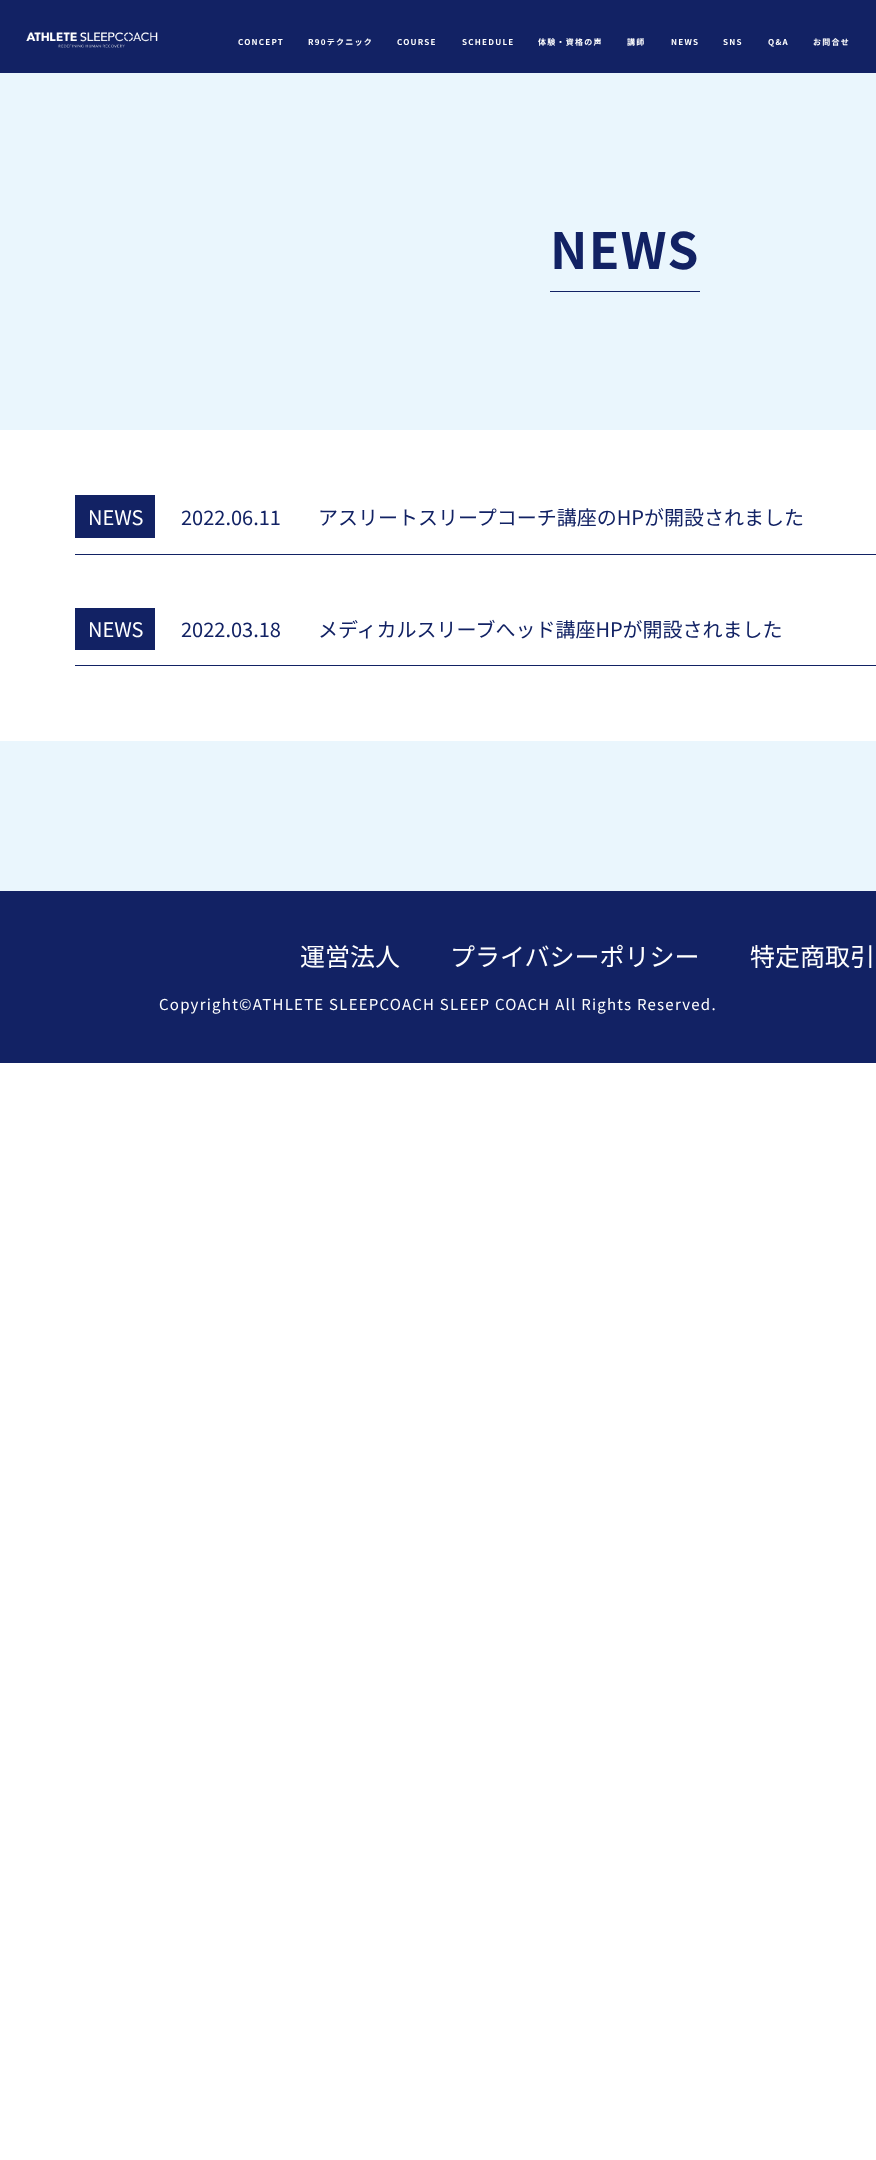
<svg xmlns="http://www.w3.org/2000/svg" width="876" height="2160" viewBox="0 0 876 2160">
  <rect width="100%" height="100%" fill="#ffffff"/>
  <rect x="0" y="0" width="876" height="73" fill="#122264"/>
  <image x="26" y="32" width="132" height="16" href="img1.png"/>
  <text x="238" y="45" font-family="Noto Sans JP" font-size="8" font-weight="bold" letter-spacing="1.25" fill="#ffffff">CONCEPT</text>
  <text x="308" y="45" font-family="Noto Sans JP" font-size="8" font-weight="bold" letter-spacing="1.25" fill="#ffffff">R90テクニック</text>
  <text x="397" y="45" font-family="Noto Sans JP" font-size="8" font-weight="bold" letter-spacing="1.25" fill="#ffffff">COURSE</text>
  <text x="462" y="45" font-family="Noto Sans JP" font-size="8" font-weight="bold" letter-spacing="1.25" fill="#ffffff">SCHEDULE</text>
  <text x="538" y="45" font-family="Noto Sans JP" font-size="8" font-weight="bold" letter-spacing="1.25" fill="#ffffff">体験・資格の声</text>
  <text x="627" y="45" font-family="Noto Sans JP" font-size="8" font-weight="bold" letter-spacing="1.25" fill="#ffffff">講師</text>
  <text x="671" y="45" font-family="Noto Sans JP" font-size="8" font-weight="bold" letter-spacing="1.25" fill="#ffffff">NEWS</text>
  <text x="723" y="45" font-family="Noto Sans JP" font-size="8" font-weight="bold" letter-spacing="1.25" fill="#ffffff">SNS</text>
  <text x="768" y="45" font-family="Noto Sans JP" font-size="8" font-weight="bold" letter-spacing="1.25" fill="#ffffff">Q&amp;A</text>
  <text x="813" y="45" font-family="Noto Sans JP" font-size="8" font-weight="bold" letter-spacing="1.25" fill="#ffffff">お問合せ</text>
  <rect x="0" y="73" width="876" height="818" fill="#eaf6fd"/>
  <rect x="550" y="291" width="150" height="1" fill="#122264"/>
  <text x="550" y="269" font-family="Noto Sans JP" font-size="50" font-weight="bold" letter-spacing="1.25" fill="#122264">NEWS</text>
  <rect x="0" y="430" width="876" height="311" fill="#ffffff"/>
  <rect x="75" y="554" width="801" height="1" fill="#122264"/>
  <rect x="75" y="495" width="80" height="43" fill="#122264"/>
  <text x="88" y="525" font-family="Noto Sans JP" font-size="20" fill="#ffffff">NEWS</text>
  <text x="181" y="525" font-family="Noto Sans JP" font-size="20" fill="#122264">2022.06.11</text>
  <text x="318" y="525" font-family="Noto Sans JP" font-size="20" fill="#122264">アスリートスリープコーチ講座のHPが開設されました</text>
  <rect x="75" y="665" width="801" height="1" fill="#122264"/>
  <rect x="75" y="608" width="80" height="42" fill="#122264"/>
  <text x="88" y="637" font-family="Noto Sans JP" font-size="20" fill="#ffffff">NEWS</text>
  <text x="181" y="637" font-family="Noto Sans JP" font-size="20" fill="#122264">2022.03.18</text>
  <text x="318" y="637" font-family="Noto Sans JP" font-size="20" fill="#122264">メディカルスリーブへッド講座HPが開設されました</text>
  <rect x="0" y="891" width="876" height="172" fill="#122264"/>
  <text x="300" y="966" font-family="Noto Sans JP" font-size="25" fill="#ffffff">運営法人</text>
  <text x="450" y="966" font-family="Noto Sans JP" font-size="25" fill="#ffffff">プライバシーポリシー</text>
  <text x="750" y="966" font-family="Noto Sans JP" font-size="25" fill="#ffffff">特定商取引</text>
  <text x="159" y="1010" font-family="Noto Sans JP" font-size="15" letter-spacing="1.25" fill="#ffffff">Copyright©ATHLETE SLEEPCOACH SLEEP COACH All Rights Reserved.</text>
</svg>
